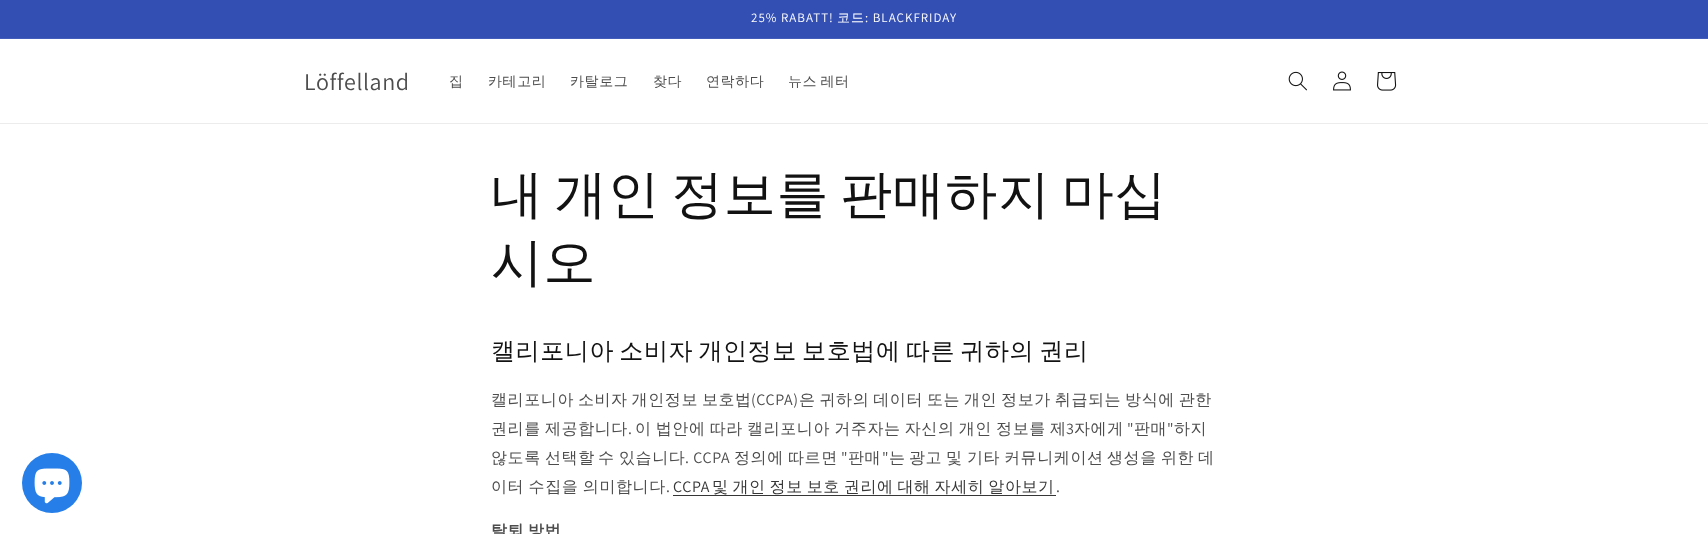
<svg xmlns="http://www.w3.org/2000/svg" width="1708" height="534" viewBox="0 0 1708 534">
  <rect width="100%" height="100%" fill="#ffffff"/>
  <rect x="0" y="0" width="1708" height="38" fill="#334fb4"/>
  <rect x="0" y="38" width="1708" height="1" fill="#435dba"/>
  <text x="751" y="22" font-family="Assistant" font-size="13" letter-spacing="1" fill="#ffffff">25% RABATT!</text>
  <text x="837" y="22" font-family="WenQuanYi Zen Hei" font-size="13" font-weight="500" letter-spacing="1" fill="#ffffff">코드</text>
  <text x="865" y="22" font-family="Assistant" font-size="13" letter-spacing="1" fill="#ffffff">: BLACKFRIDAY</text>
  <rect x="0" y="123" width="1708" height="1" fill="#ececec"/>
  <text x="304" y="90" font-family="Assistant" font-size="24" letter-spacing="0.6" fill="#4d4d4d">Löffelland</text>
  <text x="449" y="86" font-family="WenQuanYi Zen Hei" font-size="14" font-weight="500" letter-spacing="0.6" fill="#4d4d4d">집</text>
  <text x="488" y="86" font-family="WenQuanYi Zen Hei" font-size="14" font-weight="500" letter-spacing="0.6" fill="#4d4d4d">카테고리</text>
  <text x="570" y="86" font-family="WenQuanYi Zen Hei" font-size="14" font-weight="500" letter-spacing="0.6" fill="#4d4d4d">카탈로그</text>
  <text x="653" y="86" font-family="WenQuanYi Zen Hei" font-size="14" font-weight="500" letter-spacing="0.6" fill="#4d4d4d">찾다</text>
  <text x="706" y="86" font-family="WenQuanYi Zen Hei" font-size="14" font-weight="500" letter-spacing="0.6" fill="#4d4d4d">연락하다</text>
  <text x="788" y="86" word-spacing="-1.5" font-family="WenQuanYi Zen Hei" font-size="14" font-weight="500" letter-spacing="0.6" fill="#4d4d4d">뉴스 레터</text>
  <image x="1288" y="71" width="19" height="20" href="img1.png"/>
  <image x="1333" y="71" width="18" height="20" href="img2.png"/>
  <image x="1377" y="72" width="20" height="19" href="img3.png"/>
  <circle cx="52" cy="483" r="30" fill="#267fe9"/>
  <image x="34" y="468" width="36" height="36" href="img4.png"/>
  <text x="491" y="212" word-spacing="-5" font-family="WenQuanYi Zen Hei" font-size="52" font-weight="500" letter-spacing="0.6" fill="#121212">내 개인 정보를 판매하지 마십</text>
  <text x="491" y="280" font-family="WenQuanYi Zen Hei" font-size="52" font-weight="500" letter-spacing="0.6" fill="#121212">시오</text>
  <text x="491" y="359" word-spacing="-2.5" font-family="WenQuanYi Zen Hei" font-size="24" font-weight="500" letter-spacing="0.6" fill="#121212">캘리포니아 소비자 개인정보 보호법에 따른 귀하의 권리</text>
  <text x="491" y="405" word-spacing="-1.5" font-family="WenQuanYi Zen Hei" font-size="16" font-weight="500" letter-spacing="0.6" fill="#4d4d4d">캘리포니아 소비자 개인정보 보호법</text>
  <text x="751" y="405" font-family="Assistant" font-size="16" letter-spacing="0.6" fill="#4d4d4d">(CCPA)</text>
  <text x="799" y="405" word-spacing="-1.5" font-family="WenQuanYi Zen Hei" font-size="16" font-weight="500" letter-spacing="0.6" fill="#4d4d4d">은 귀하의 데이터 또는 개인 정보가 취급되는 방식에 관한</text>
  <text x="491" y="434" word-spacing="-1.25" font-family="WenQuanYi Zen Hei" font-size="16" font-weight="500" letter-spacing="0.6" fill="#4d4d4d">권리를 제공합니다</text>
  <text x="628" y="434" font-family="Assistant" font-size="16" letter-spacing="0.6" fill="#4d4d4d">.</text>
  <text x="635" y="434" word-spacing="-1.25" font-family="WenQuanYi Zen Hei" font-size="16" font-weight="500" letter-spacing="0.6" fill="#4d4d4d">이 법안에 따라 캘리포니아 거주자는 자신의 개인 정보를 제</text>
  <text x="1066" y="434" font-family="Assistant" font-size="16" letter-spacing="0.6" fill="#4d4d4d">3</text>
  <text x="1074" y="434" font-family="WenQuanYi Zen Hei" font-size="16" font-weight="500" letter-spacing="0.6" fill="#4d4d4d">자에게</text>
  <text x="1127" y="434" font-family="Assistant" font-size="16" letter-spacing="0.6" fill="#4d4d4d">"</text>
  <text x="1134" y="434" font-family="WenQuanYi Zen Hei" font-size="16" font-weight="500" letter-spacing="0.6" fill="#4d4d4d">판매</text>
  <text x="1167" y="434" font-family="Assistant" font-size="16" letter-spacing="0.6" fill="#4d4d4d">"</text>
  <text x="1174" y="434" font-family="WenQuanYi Zen Hei" font-size="16" font-weight="500" letter-spacing="0.6" fill="#4d4d4d">하지</text>
  <text x="491" y="463" font-family="WenQuanYi Zen Hei" font-size="16" font-weight="500" letter-spacing="0.6" fill="#4d4d4d">않도록</text>
  <text x="545" y="463" font-family="WenQuanYi Zen Hei" font-size="16" font-weight="500" letter-spacing="0.6" fill="#4d4d4d">선택할</text>
  <text x="598" y="463" font-family="WenQuanYi Zen Hei" font-size="16" font-weight="500" letter-spacing="0.6" fill="#4d4d4d">수</text>
  <text x="619" y="463" font-family="WenQuanYi Zen Hei" font-size="16" font-weight="500" letter-spacing="0.6" fill="#4d4d4d">있습니다</text>
  <text x="685" y="463" font-family="Assistant" font-size="16" letter-spacing="0.6" fill="#4d4d4d">. CCPA</text>
  <text x="734" y="463" font-family="WenQuanYi Zen Hei" font-size="16" font-weight="500" letter-spacing="0.6" fill="#4d4d4d">정의에</text>
  <text x="788" y="463" font-family="WenQuanYi Zen Hei" font-size="16" font-weight="500" letter-spacing="0.6" fill="#4d4d4d">따르면</text>
  <text x="841" y="463" font-family="Assistant" font-size="16" letter-spacing="0.6" fill="#4d4d4d">"</text>
  <text x="848" y="463" font-family="WenQuanYi Zen Hei" font-size="16" font-weight="500" letter-spacing="0.6" fill="#4d4d4d">판매</text>
  <text x="882" y="463" font-family="Assistant" font-size="16" letter-spacing="0.6" fill="#4d4d4d">"</text>
  <text x="889" y="463" font-family="WenQuanYi Zen Hei" font-size="16" font-weight="500" letter-spacing="0.6" fill="#4d4d4d">는</text>
  <text x="909" y="463" font-family="WenQuanYi Zen Hei" font-size="16" font-weight="500" letter-spacing="0.6" fill="#4d4d4d">광고</text>
  <text x="946" y="463" font-family="WenQuanYi Zen Hei" font-size="16" font-weight="500" letter-spacing="0.6" fill="#4d4d4d">및</text>
  <text x="967" y="463" font-family="WenQuanYi Zen Hei" font-size="16" font-weight="500" letter-spacing="0.6" fill="#4d4d4d">기타</text>
  <text x="1004" y="463" font-family="WenQuanYi Zen Hei" font-size="16" font-weight="500" letter-spacing="0.6" fill="#4d4d4d">커뮤니케이션</text>
  <text x="1107" y="463" font-family="WenQuanYi Zen Hei" font-size="16" font-weight="500" letter-spacing="0.6" fill="#4d4d4d">생성을</text>
  <text x="1161" y="463" font-family="WenQuanYi Zen Hei" font-size="16" font-weight="500" letter-spacing="0.6" fill="#4d4d4d">위한</text>
  <text x="1198" y="463" font-family="WenQuanYi Zen Hei" font-size="16" font-weight="500" letter-spacing="0.6" fill="#4d4d4d">데</text>
  <text x="491" y="492" word-spacing="-1" font-family="WenQuanYi Zen Hei" font-size="16" font-weight="500" letter-spacing="0.6" fill="#4d4d4d">이터 수집을 의미합니다</text>
  <text x="666" y="492" font-family="Assistant" font-size="16" letter-spacing="0.6" fill="#4d4d4d">.</text>
  <text x="673" y="492" font-family="Assistant" font-size="16" letter-spacing="0.6" fill="#363636">CCPA</text>
  <text x="712" y="492" word-spacing="-1.5" font-family="WenQuanYi Zen Hei" font-size="16" font-weight="500" letter-spacing="0.6" fill="#363636">및 개인 정보 보호 권리에 대해 자세히 알아보기</text>
  <rect x="673" y="495" width="383" height="1" fill="#363636"/>
  <text x="1056" y="492" font-family="Assistant" font-size="16" letter-spacing="0.6" fill="#4d4d4d">.</text>
  <text x="491" y="536" word-spacing="-1.5" font-family="WenQuanYi Zen Hei" font-size="16" font-weight="bold" letter-spacing="0.6" fill="#4d4d4d">탈퇴 방법</text>
</svg>
